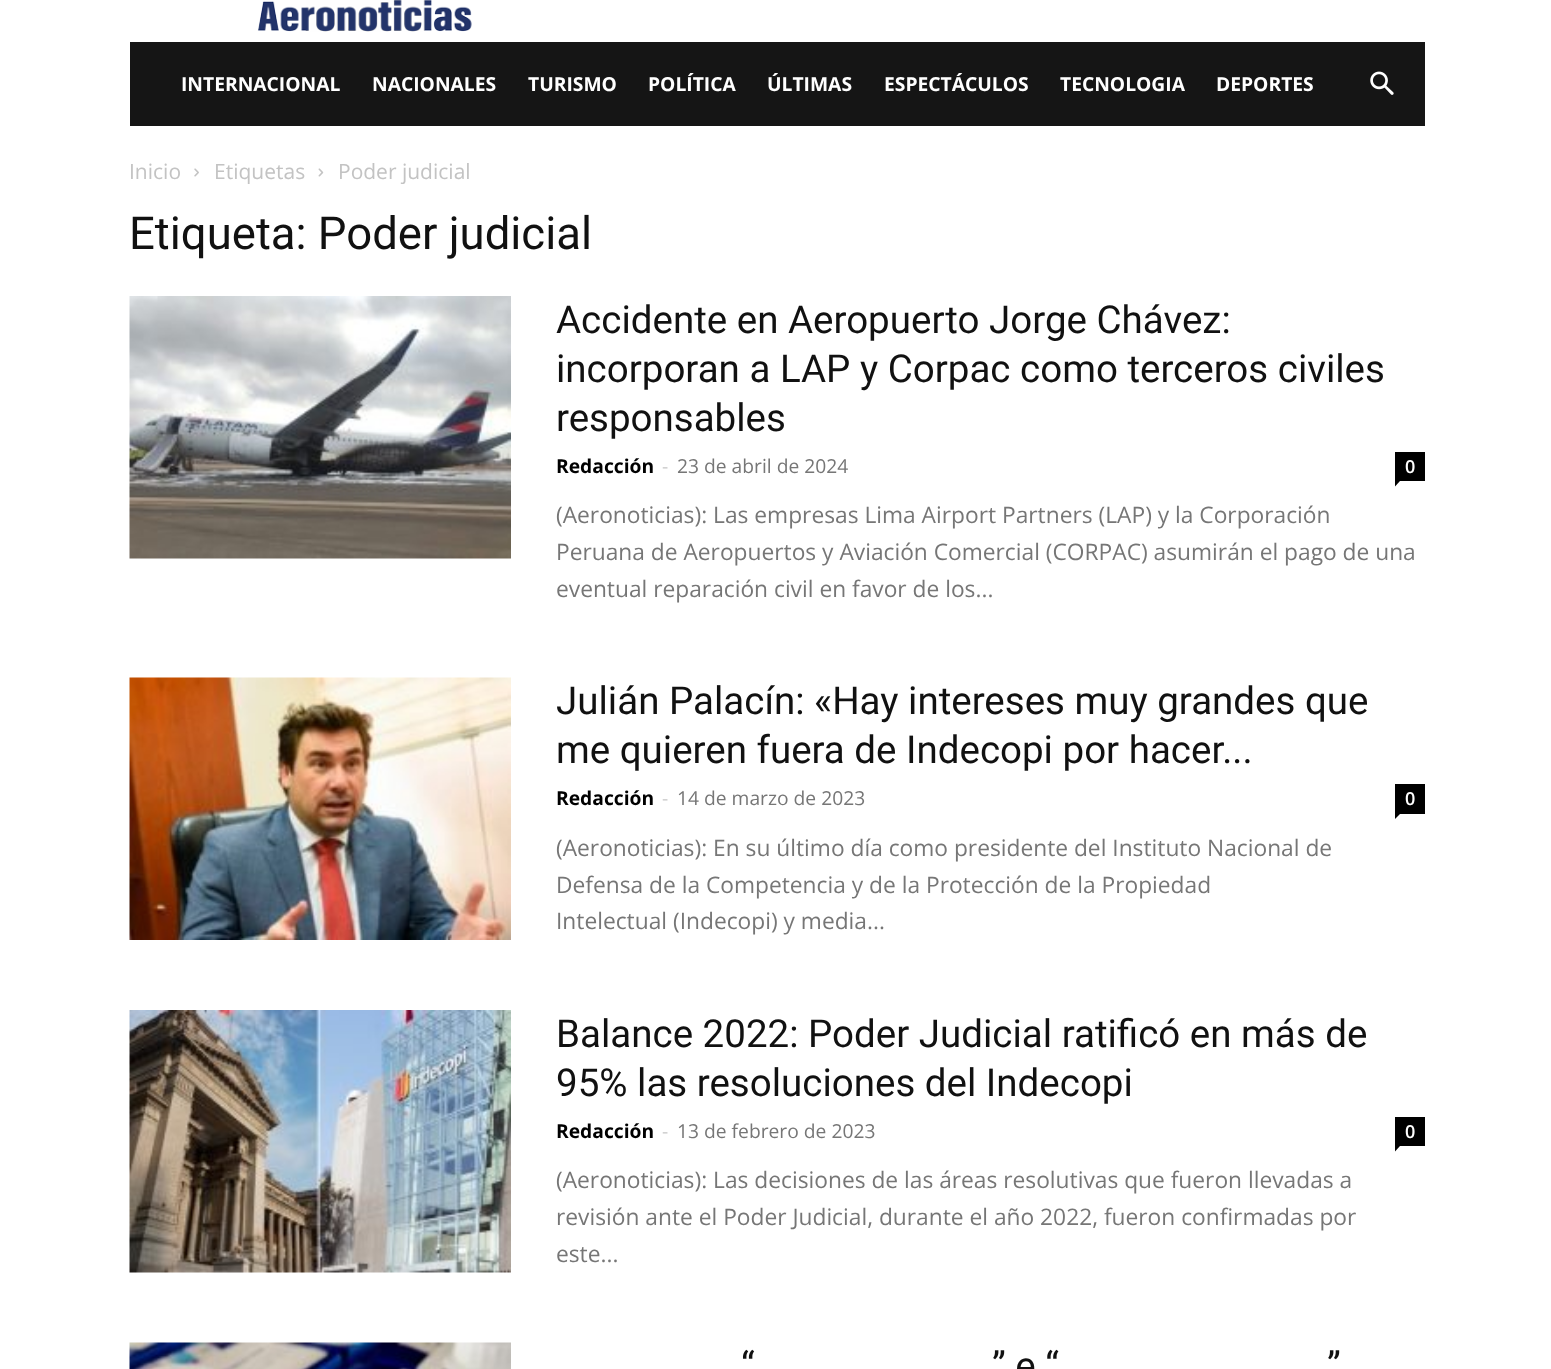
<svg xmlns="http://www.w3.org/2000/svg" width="1551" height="1369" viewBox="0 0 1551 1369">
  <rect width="100%" height="100%" fill="#ffffff"/>
  <image x="257" y="0" width="215" height="32" href="img1.png"/>
  <rect x="130" y="42" width="1295" height="84" fill="#151515"/>
  <text x="181" y="91" font-family="Open Sans" font-size="19.25" font-weight="bold" fill="#ffffff">INTERNACIONAL</text>
  <text x="372" y="91" font-family="Open Sans" font-size="19.25" font-weight="bold" fill="#ffffff">NACIONALES</text>
  <text x="528" y="91" font-family="Open Sans" font-size="19.25" font-weight="bold" fill="#ffffff">TURISMO</text>
  <text x="648" y="91" font-family="Open Sans" font-size="19.25" font-weight="bold" fill="#ffffff">POLÍTICA</text>
  <text x="767" y="91" font-family="Open Sans" font-size="19.25" font-weight="bold" fill="#ffffff">ÚLTIMAS</text>
  <text x="884" y="91" font-family="Open Sans" font-size="19.25" font-weight="bold" fill="#ffffff">ESPECTÁCULOS</text>
  <text x="1060" y="91" font-family="Open Sans" font-size="19.25" font-weight="bold" fill="#ffffff">TECNOLOGIA</text>
  <text x="1216" y="91" font-family="Open Sans" font-size="19.25" font-weight="bold" fill="#ffffff">DEPORTES</text>
  <image x="1370" y="71" width="24" height="24" href="img2.png"/>
  <text x="129" y="179" font-family="Open Sans" font-size="21" fill="#c3c3c3">Inicio</text>
  <image x="194" y="168" width="5" height="9" href="img3.png"/>
  <text x="214" y="179" font-family="Open Sans" font-size="21" fill="#c3c3c3">Etiquetas</text>
  <image x="318" y="168" width="6" height="9" href="img4.png"/>
  <text x="338" y="179" font-family="Open Sans" font-size="21" fill="#c3c3c3">Poder judicial</text>
  <text x="129" y="249" font-family="Roboto" font-size="45.5" fill="#111111">Etiqueta: Poder judicial</text>
  <image x="129" y="296" width="382" height="263" href="img5.png"/>
  <text x="556" y="333" font-family="Roboto" font-size="38.5" fill="#111111">Accidente en Aeropuerto Jorge Chávez:</text>
  <text x="556" y="382" font-family="Roboto" font-size="38.5" fill="#111111">incorporan a LAP y Corpac como terceros civiles</text>
  <text x="556" y="431" font-family="Roboto" font-size="38.5" fill="#111111">responsables</text>
  <text x="556" y="473" font-family="Open Sans" font-size="19.25" font-weight="bold" fill="#000000">Redacción</text>
  <text x="662" y="473" font-family="Open Sans" font-size="19.25" fill="#cccccc">-</text>
  <text x="677" y="473" font-family="Open Sans" font-size="19.25" fill="#767676">23 de abril de 2024</text>
  <rect x="1395" y="452" width="30" height="29" fill="#000000"/>
  <text x="1405" y="473" font-family="Open Sans" font-size="18" font-weight="600" fill="#ffffff">0</text>
  <path d="M1395 481H1400L1395 486.5Z" fill="#000000"/>
  <text x="556" y="523" font-family="Open Sans" font-size="22.75" fill="#767676">(Aeronoticias): Las empresas Lima Airport Partners (LAP) y la Corporación</text>
  <text x="556" y="560" font-family="Open Sans" font-size="22.75" fill="#767676">Peruana de Aeropuertos y Aviación Comercial (CORPAC) asumirán el pago de una</text>
  <text x="556" y="597" font-family="Open Sans" font-size="22.75" fill="#767676">eventual reparación civil en favor de los...</text>
  <image x="129" y="677" width="382" height="263" href="img6.png"/>
  <text x="556" y="714" font-family="Roboto" font-size="38.5" fill="#111111">Julián Palacín: «Hay intereses muy grandes que</text>
  <text x="556" y="763" font-family="Roboto" font-size="38.5" fill="#111111">me quieren fuera de Indecopi por hacer...</text>
  <text x="556" y="805" font-family="Open Sans" font-size="19.25" font-weight="bold" fill="#000000">Redacción</text>
  <text x="662" y="805" font-family="Open Sans" font-size="19.25" fill="#cccccc">-</text>
  <text x="677" y="805" font-family="Open Sans" font-size="19.25" fill="#767676">14 de marzo de 2023</text>
  <rect x="1395" y="784" width="30" height="30" fill="#000000"/>
  <text x="1405" y="805" font-family="Open Sans" font-size="18" font-weight="600" fill="#ffffff">0</text>
  <path d="M1395 814H1400L1395 819Z" fill="#000000"/>
  <text x="556" y="856" font-family="Open Sans" font-size="22.75" fill="#767676">(Aeronoticias): En su último día como presidente del Instituto Nacional de</text>
  <text x="556" y="893" font-family="Open Sans" font-size="22.75" fill="#767676">Defensa de la Competencia y de la Protección de la Propiedad</text>
  <text x="556" y="929" font-family="Open Sans" font-size="22.75" fill="#767676">Intelectual (Indecopi) y media...</text>
  <image x="129" y="1010" width="382" height="263" href="img7.png"/>
  <text x="556" y="1047" font-family="Roboto" font-size="38.5" fill="#111111">Balance 2022: Poder Judicial ratificó en más de</text>
  <text x="556" y="1096" font-family="Roboto" font-size="38.5" fill="#111111">95% las resoluciones del Indecopi</text>
  <text x="556" y="1138" font-family="Open Sans" font-size="19.25" font-weight="bold" fill="#000000">Redacción</text>
  <text x="662" y="1138" font-family="Open Sans" font-size="19.25" fill="#cccccc">-</text>
  <text x="677" y="1138" font-family="Open Sans" font-size="19.25" fill="#767676">13 de febrero de 2023</text>
  <rect x="1395" y="1117" width="30" height="29" fill="#000000"/>
  <text x="1405" y="1138" font-family="Open Sans" font-size="18" font-weight="600" fill="#ffffff">0</text>
  <path d="M1395 1146H1400L1395 1151.5Z" fill="#000000"/>
  <text x="556" y="1188" font-family="Open Sans" font-size="22.75" fill="#767676">(Aeronoticias): Las decisiones de las áreas resolutivas que fueron llevadas a</text>
  <text x="556" y="1225" font-family="Open Sans" font-size="22.75" fill="#767676">revisión ante el Poder Judicial, durante el año 2022, fueron confirmadas por</text>
  <text x="556" y="1262" font-family="Open Sans" font-size="22.75" fill="#767676">este...</text>
  <image x="129" y="1342" width="382" height="27" href="img8.png"/>
  <text x="741" y="1379" font-family="Roboto" font-size="38.5" fill="#111111">“</text>
  <text x="992" y="1379" font-family="Roboto" font-size="38.5" fill="#111111">” e “</text>
  <text x="1327" y="1379" font-family="Roboto" font-size="38.5" fill="#111111">”</text>
</svg>
